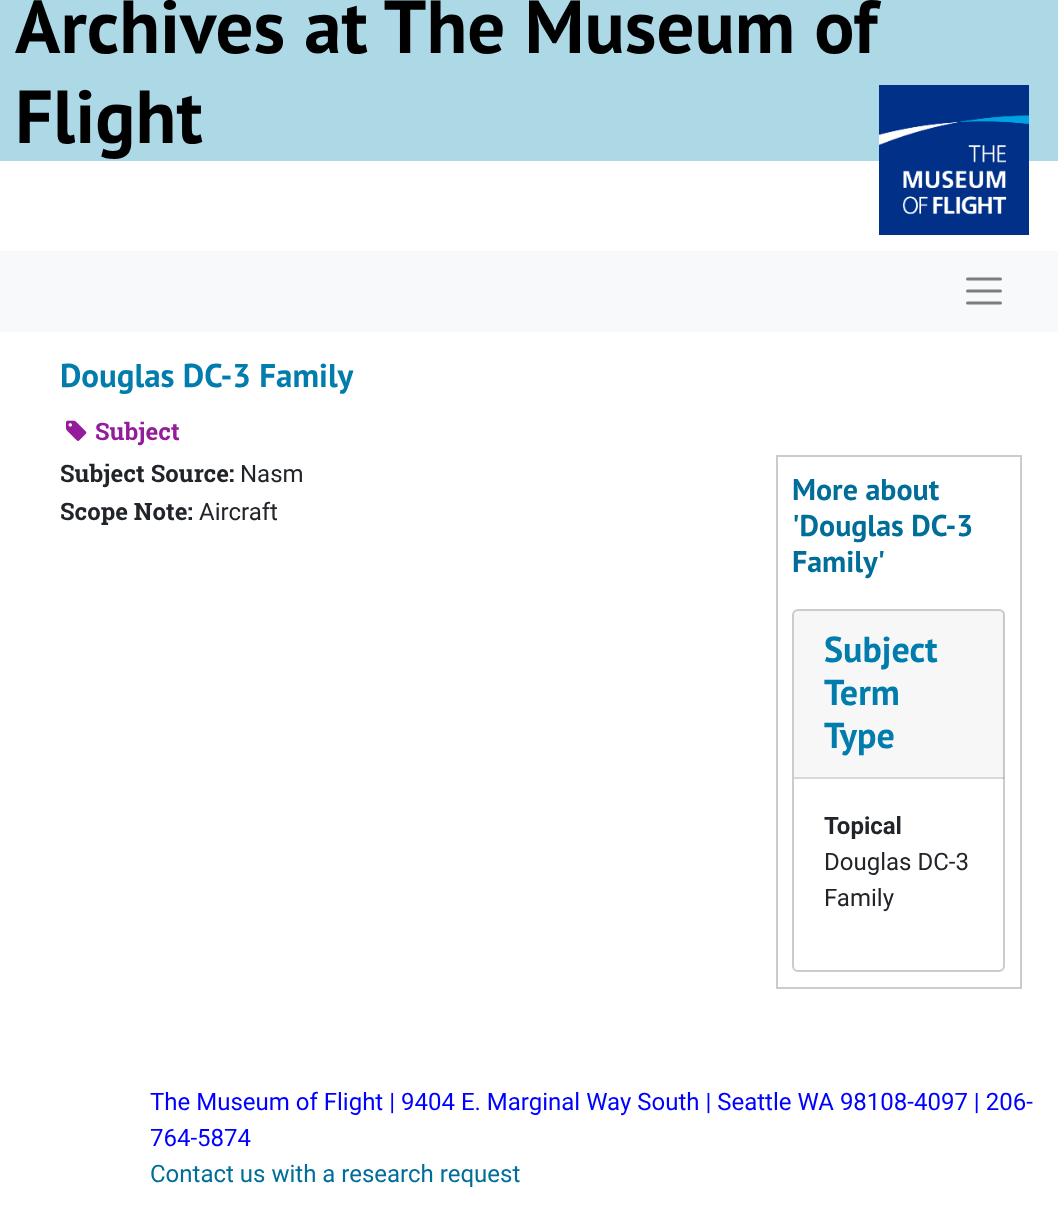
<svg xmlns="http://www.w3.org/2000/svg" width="1058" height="1212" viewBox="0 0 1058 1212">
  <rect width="100%" height="100%" fill="#ffffff"/>
  <rect x="0" y="0" width="1058" height="161" fill="#add8e6"/>
  <text x="15" y="53" font-family="PT Sans" font-size="75" font-weight="bold" fill="#000000">Archives at The Museum of</text>
  <text x="15" y="143" font-family="PT Sans" font-size="75" font-weight="bold" fill="#000000">Flight</text>
  <image x="879" y="85" width="150" height="150" href="img1.png"/>
  <rect x="0" y="251" width="1058" height="81" fill="#f8f9fa"/>
  <path d="M967.5 279H1000.5M967.5 291H1000.5M967.5 303H1000.5" fill="none" stroke="#7c7d7d" stroke-width="3" stroke-linecap="round"/>
  <text x="60" y="387" font-family="PT Sans" font-size="33" font-weight="bold" fill="#007cad">Douglas DC-3 Family</text>
  <image x="66" y="420" width="21" height="21" href="img2.png"/>
  <text x="95" y="440" font-family="Roboto Slab" font-size="24" font-weight="bold" fill="#941c9a">Subject</text>
  <text x="60" y="482" font-family="Roboto Slab" font-size="24" font-weight="bold" fill="#212529">Subject Source:</text>
  <text x="240" y="482" font-family="Roboto" font-size="24" fill="#212529">Nasm</text>
  <text x="60" y="520" font-family="Roboto Slab" font-size="24" font-weight="bold" fill="#212529">Scope Note:</text>
  <text x="199" y="520" font-family="Roboto" font-size="24" fill="#212529">Aircraft</text>
  <rect x="777" y="456" width="244" height="532" fill="none" stroke="#cccccc" stroke-width="2"/>
  <text x="792" y="500" font-family="PT Sans" font-size="30" font-weight="bold" fill="#006e99">More about</text>
  <text x="792" y="536" font-family="PT Sans" font-size="30" font-weight="bold" fill="#006e99">'Douglas DC-3</text>
  <text x="792" y="572" font-family="PT Sans" font-size="30" font-weight="bold" fill="#006e99">Family'</text>
  <rect x="793" y="610" width="211" height="361" rx="5" fill="none" stroke="#cccccc" stroke-width="2"/>
  <rect x="794" y="611" width="210" height="168" fill="#000000" fill-opacity="0.03"/>
  <rect x="794" y="777" width="210" height="2" fill="#000000" fill-opacity="0.12"/>
  <text x="824" y="662" font-family="PT Sans" font-size="36" font-weight="bold" fill="#007cad">Subject</text>
  <text x="824" y="705" font-family="PT Sans" font-size="36" font-weight="bold" fill="#007cad">Term</text>
  <text x="824" y="748" font-family="PT Sans" font-size="36" font-weight="bold" fill="#007cad">Type</text>
  <text x="824" y="834" font-family="Roboto" font-size="24" font-weight="bold" fill="#212529">Topical</text>
  <text x="824" y="870" font-family="Roboto" font-size="24" fill="#212529">Douglas DC-3</text>
  <text x="824" y="906" font-family="Roboto" font-size="24" fill="#212529">Family</text>
  <text x="150" y="1110" font-family="Roboto" font-size="24" fill="#0000ff">The Museum of Flight | 9404 E. Marginal Way South | Seattle WA 98108-4097 | 206-</text>
  <text x="150" y="1146" font-family="Roboto" font-size="24" fill="#0000ff">764-5874</text>
  <text x="150" y="1182" font-family="Roboto" font-size="24" fill="#006e99">Contact us with a research request</text>
</svg>
